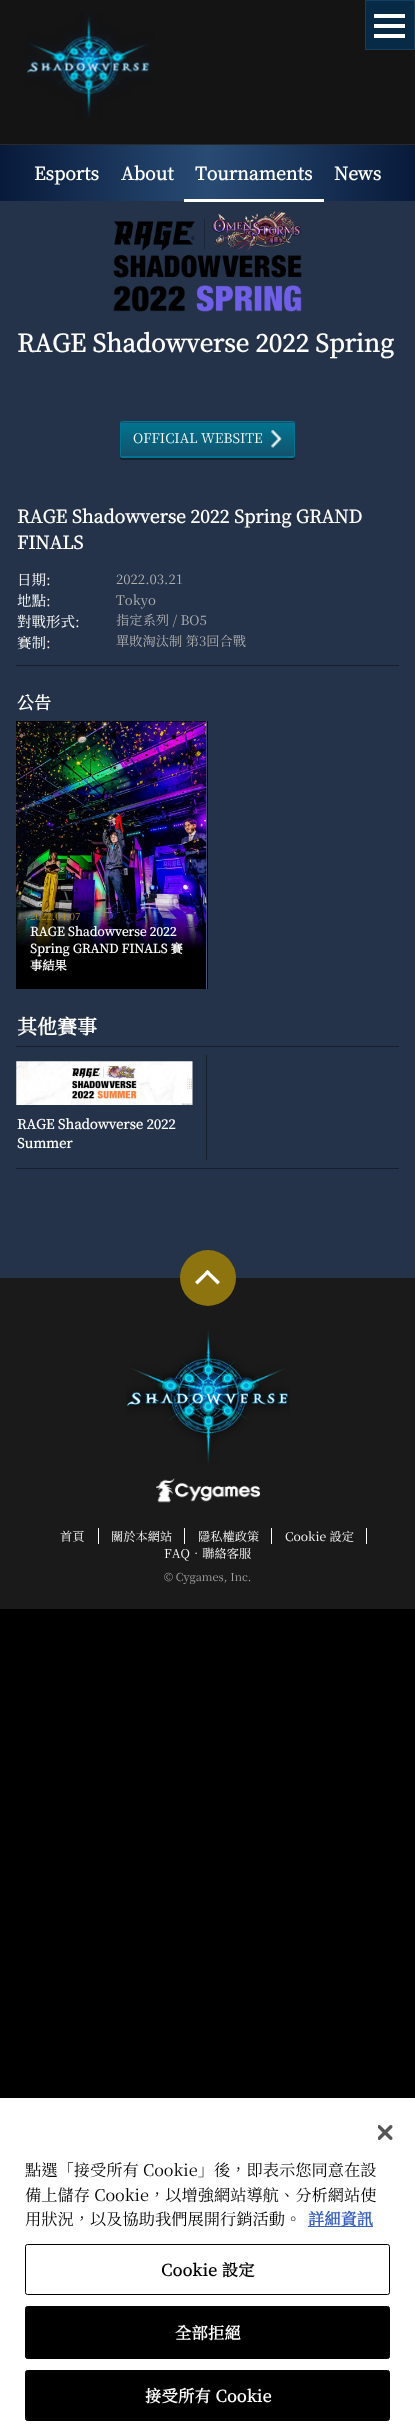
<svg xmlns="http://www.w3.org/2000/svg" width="415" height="2432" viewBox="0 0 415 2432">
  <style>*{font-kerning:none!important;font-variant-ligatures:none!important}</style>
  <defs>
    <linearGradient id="g1" gradientUnits="userSpaceOnUse" x1="0" y1="173" x2="415" y2="173"><stop offset="0" stop-color="#081a3a"/><stop offset="0.5" stop-color="#284b74"/><stop offset="1" stop-color="#081a3a"/></linearGradient>
    <filter id="blur1" x="-50%" y="-200%" width="200%" height="500%"><feGaussianBlur stdDeviation="0.5"/></filter>
    <clipPath id="clip1"><rect x="120" y="421" width="175" height="37" rx="2.5"/></clipPath>
    <linearGradient id="g2" gradientUnits="userSpaceOnUse" x1="208" y1="389" x2="208" y2="423"><stop offset="0" stop-color="#007491"/><stop offset="1" stop-color="#13526c"/></linearGradient>
    <linearGradient id="g3" gradientUnits="userSpaceOnUse" x1="208" y1="423" x2="208" y2="456"><stop offset="0" stop-color="#007491"/><stop offset="1" stop-color="#13526c"/></linearGradient>
    <linearGradient id="g4" gradientUnits="userSpaceOnUse" x1="208" y1="456" x2="208" y2="490"><stop offset="0" stop-color="#007491"/><stop offset="1" stop-color="#13526c"/></linearGradient>
  </defs>
  <rect width="100%" height="100%" fill="#000000"/>
  <rect x="0" y="0" width="415" height="144" fill="#141414"/>
  <image x="25" y="13" width="129" height="106" href="img1.png"/>
  <rect x="365.5" y="0.5" width="49" height="49" fill="#072b46" stroke="#143f60"/>
  <rect x="374" y="14" width="31" height="4" fill="#ffffff"/>
  <rect x="374" y="24" width="31" height="4" fill="#ffffff"/>
  <rect x="374" y="34" width="31" height="4" fill="#ffffff"/>
  <rect x="0" y="144" width="415" height="1" fill="#292929"/>
  <rect x="0" y="145" width="415" height="56" fill="url(#g1)"/>
  <text x="34" y="180" font-family="Noto Serif TC" font-size="17.75" font-weight="bold" fill="#ffffff">Esports</text>
  <text x="121" y="180" font-family="Noto Serif TC" font-size="17.75" font-weight="bold" fill="#ffffff">About</text>
  <text x="195" y="180" font-family="Noto Serif TC" font-size="17.75" font-weight="bold" fill="#ffffff">Tournaments</text>
  <rect x="0" y="201" width="415" height="1077" fill="#24334a"/>
  <rect x="184" y="199" width="140" height="3" fill="#ffffff"/>
  <text x="334" y="180" font-family="Noto Serif TC" font-size="17.75" font-weight="bold" fill="#ffffff">News</text>
  <image x="113" y="210" width="189" height="102" href="img2.png"/>
  <text x="17" y="352" font-family="Noto Serif TC" font-size="24.4" font-weight="bold" fill="#ffffff">RAGE Shadowverse 2022 Spring</text>
  <rect x="120" y="424" width="175" height="36" rx="2.5" fill="#000000" fill-opacity="0.35" filter="url(#blur1)"/>
  <g clip-path="url(#clip1)">
    <rect x="120" y="421" width="175" height="2" fill="url(#g2)"/>
  </g>
  <rect x="120" y="423" width="175" height="33" fill="url(#g3)"/>
  <g clip-path="url(#clip1)">
    <rect x="120" y="456" width="175" height="2" fill="url(#g4)"/>
  </g>
  <rect x="120.5" y="421.5" width="174" height="36" rx="2" fill="none" stroke="#007491"/>
  <text x="133" y="443" font-family="Noto Serif TC" font-size="13.25" font-weight="200" fill="#ffffff">OFFICIAL WEBSITE</text>
  <image x="271" y="430" width="11" height="18" href="img3.png"/>
  <rect x="16" y="665" width="383" height="1" fill="#161f2c"/>
  <text x="17" y="523" font-family="Noto Serif TC" font-size="17.75" font-weight="bold" fill="#ffffff">RAGE Shadowverse 2022 Spring GRAND</text>
  <text x="17" y="549" font-family="Noto Serif TC" font-size="17.75" font-weight="bold" fill="#ffffff">FINALS</text>
  <text x="17" y="585" font-family="Noto Serif TC" font-size="14.5" font-weight="200" fill="#ffffff">日期:</text>
  <text x="116" y="584" font-family="Noto Serif TC" font-size="13.25" font-weight="200" fill="#b2b2b2">2022.03.21</text>
  <text x="17" y="606" font-family="Noto Serif TC" font-size="14.5" font-weight="200" fill="#ffffff">地點:</text>
  <text x="116" y="605" font-family="Noto Serif TC" font-size="13.25" font-weight="200" fill="#b2b2b2">Tokyo</text>
  <text x="17" y="627" font-family="Noto Serif TC" font-size="14.5" font-weight="200" fill="#ffffff">對戰形式:</text>
  <text x="116" y="625" font-family="Noto Serif TC" font-size="13.25" font-weight="200" fill="#b2b2b2">指定系列 / BO5</text>
  <text x="17" y="648" font-family="Noto Serif TC" font-size="14.5" font-weight="200" fill="#ffffff">賽制:</text>
  <text x="116" y="646" font-family="Noto Serif TC" font-size="13.25" font-weight="200" fill="#b2b2b2">單敗淘汰制 第3回合戰</text>
  <text x="17" y="709" font-family="Noto Serif TC" font-size="17" font-weight="bold" fill="#ffffff">公告</text>
  <rect x="16" y="721" width="192" height="268" fill="#000000"/>
  <rect x="206" y="721" width="1" height="268" fill="#445a7b"/>
  <image x="16" y="721" width="191" height="227" href="img4.png"/>
  <text x="30" y="920" font-family="Noto Serif TC" font-size="10" font-weight="200" fill="#aa8c13">2022.04.07</text>
  <text x="30" y="936" font-family="Noto Serif TC" font-size="12.25" font-weight="bold" fill="#ffffff">RAGE Shadowverse 2022</text>
  <text x="30" y="953" font-family="Noto Serif TC" font-size="12.25" font-weight="bold" fill="#ffffff">Spring GRAND FINALS 賽</text>
  <text x="30" y="970" font-family="Noto Serif TC" font-size="12.25" font-weight="bold" fill="#ffffff">事結果</text>
  <text x="17" y="1034" font-family="Noto Serif TC" font-size="20" font-weight="bold" fill="#ffffff">其他賽事</text>
  <rect x="16" y="1168" width="383" height="1" fill="#161f2c"/>
  <rect x="16" y="1046" width="383" height="1" fill="#161f2c"/>
  <image x="16" y="1061" width="177" height="44" href="img5.png"/>
  <text x="17" y="1129" font-family="Noto Serif TC" font-size="13.25" font-weight="bold" fill="#ffffff">RAGE Shadowverse 2022</text>
  <text x="17" y="1148" font-family="Noto Serif TC" font-size="13.25" font-weight="bold" fill="#ffffff">Summer</text>
  <rect x="206" y="1055" width="1" height="105" fill="#161f2c"/>
  <rect x="0" y="1278" width="415" height="331" fill="#1a1a1a"/>
  <circle cx="208" cy="1278" r="28" fill="#8d740e"/>
  <path d="M195 1282L207.5 1270L210 1272L197.5 1284.5Z" fill="#ffffff"/>
  <path d="M207.5 1270L220 1282L217.5 1284.5L205 1272Z" fill="#ffffff"/>
  <image x="126" y="1330" width="164" height="135" href="img6.png"/>
  <image x="156" y="1478" width="104" height="25" href="img7.png"/>
  <rect x="98" y="1528" width="1" height="16" fill="#ffffff"/>
  <text x="60" y="1541" font-family="Noto Serif TC" font-size="12.25" font-weight="200" fill="#ffffff">首頁</text>
  <rect x="184" y="1528" width="1" height="16" fill="#ffffff"/>
  <text x="111" y="1541" font-family="Noto Serif TC" font-size="12.25" font-weight="200" fill="#ffffff">關於本網站</text>
  <rect x="271" y="1528" width="1" height="16" fill="#ffffff"/>
  <text x="198" y="1541" font-family="Noto Serif TC" font-size="12.25" font-weight="200" fill="#ffffff">隱私權政策</text>
  <rect x="366" y="1528" width="1" height="16" fill="#ffffff"/>
  <text x="285" y="1541" font-family="Noto Serif TC" font-size="12.25" font-weight="200" fill="#ffffff">Cookie 設定</text>
  <text x="164" y="1558" font-family="Noto Serif TC" font-size="12.25" font-weight="200" fill="#ffffff">FAQ‧聯絡客服</text>
  <text x="164" y="1581" font-family="Noto Serif TC" font-size="11" font-weight="200" fill="#a5a5a5">© Cygames, Inc.</text>
  <rect x="0" y="2098" width="415" height="334" fill="#ffffff"/>
  <image x="378" y="2125" width="15" height="15" href="img8.png"/>
  <text x="25" y="2176" font-family="Noto Serif TC" font-size="16.25" font-weight="200" fill="#000000">點選「接受所有 Cookie」後，即表示您同意在設</text>
  <text x="25" y="2201" font-family="Noto Serif TC" font-size="16.25" font-weight="200" fill="#000000">備上儲存 Cookie，以增強網站導航、分析網站使</text>
  <text x="25" y="2225" font-family="Noto Serif TC" font-size="16.25" font-weight="200" fill="#000000">用狀況，以及協助我們展開行銷活動。</text>
  <rect x="308" y="2226" width="65" height="1" fill="#3860be"/>
  <text x="308" y="2225" font-family="Noto Serif TC" font-size="16.25" font-weight="bold" fill="#3860be">詳細資訊</text>
  <rect x="25.5" y="2244.5" width="364" height="50" rx="2" fill="none" stroke="#000000"/>
  <text x="161" y="2276" font-family="Noto Serif TC" font-size="16.25" font-weight="bold" letter-spacing="0.25" fill="#000000">Cookie 設定</text>
  <rect x="25.5" y="2306.5" width="364" height="52" rx="2" fill="#000000" stroke="#000000"/>
  <text x="175" y="2339" font-family="Noto Serif TC" font-size="16.25" font-weight="bold" letter-spacing="0.25" fill="#ffffff">全部拒絕</text>
  <rect x="25.5" y="2370.5" width="364" height="50" rx="2" fill="#000000" stroke="#000000"/>
  <text x="145" y="2402" font-family="Noto Serif TC" font-size="16.25" font-weight="bold" letter-spacing="0.25" fill="#ffffff">接受所有 Cookie</text>
</svg>
